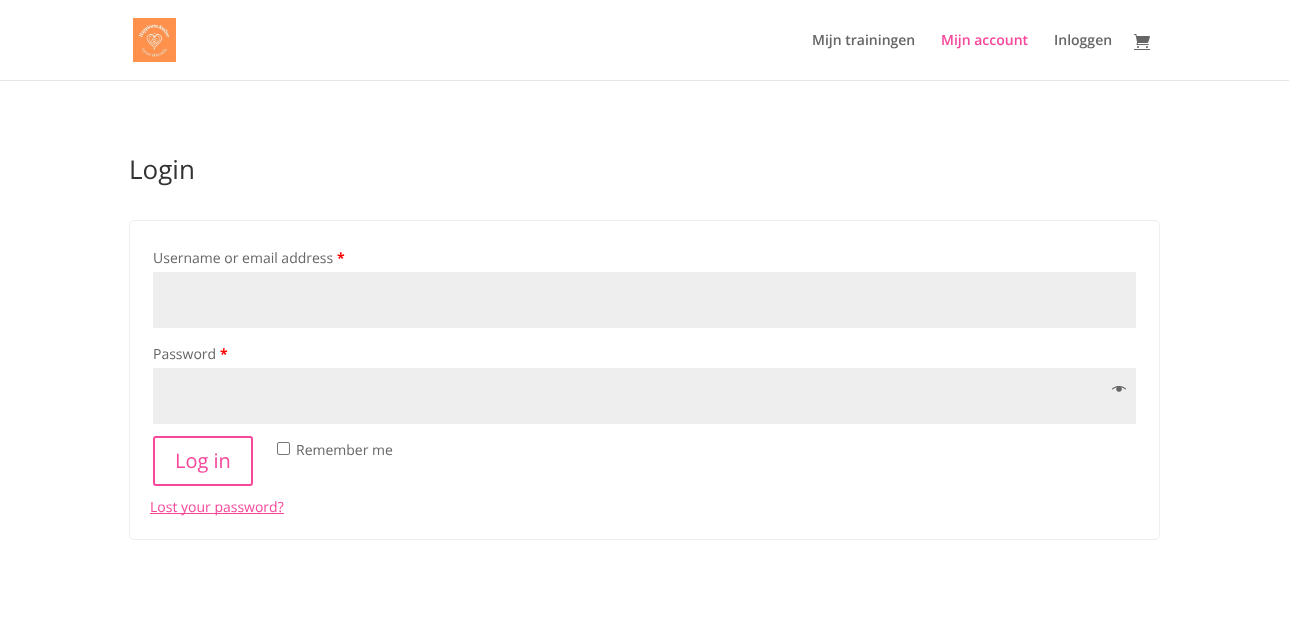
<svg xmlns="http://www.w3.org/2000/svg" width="1289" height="636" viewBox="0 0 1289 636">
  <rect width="100%" height="100%" fill="#ffffff"/>
  <rect x="0" y="80" width="1289" height="1" fill="#e6e6e6"/>
  <image x="133" y="18" width="43" height="44" href="img1.png"/>
  <text x="812" y="45" font-family="Open Sans" font-size="14" font-weight="600" fill="#666666">Mijn trainingen</text>
  <text x="941" y="45" font-family="Open Sans" font-size="14" font-weight="600" fill="#f6479b">Mijn account</text>
  <text x="1054" y="45" font-family="Open Sans" font-size="14" font-weight="600" fill="#666666">Inloggen</text>
  <image x="1134" y="34" width="16" height="14" href="img2.png"/>
  <rect x="1134" y="49" width="16" height="1" fill="#666666"/>
  <text x="129" y="179" font-family="Open Sans" font-size="26" fill="#333333">Login</text>
  <rect x="129.5" y="220.5" width="1030" height="319" rx="4.5" fill="none" stroke="#eeeeee"/>
  <text x="153" y="263" font-family="Open Sans" font-size="14" fill="#666666">Username or email address</text>
  <text x="337" y="263" font-family="Open Sans" font-size="14" font-weight="bold" fill="#ff0000">*</text>
  <rect x="153" y="272" width="983" height="56" fill="#eeeeee"/>
  <text x="153" y="359" font-family="Open Sans" font-size="14" fill="#666666">Password</text>
  <text x="220" y="359" font-family="Open Sans" font-size="14" font-weight="bold" fill="#ff0000">*</text>
  <rect x="153" y="368" width="983" height="56" fill="#eeeeee"/>
  <image x="1112" y="385" width="14" height="7" href="img3.png"/>
  <rect x="277.5" y="442.5" width="12" height="12" rx="1.5" fill="none" stroke="#767676"/>
  <text x="296" y="455" font-family="Open Sans" font-size="14" fill="#666666">Remember me</text>
  <rect x="154" y="437" width="98" height="48" rx="2" fill="none" stroke="#f6479b" stroke-width="2"/>
  <text x="175" y="468" font-family="Open Sans" font-size="20" fill="#f6479b">Log in</text>
  <rect x="150" y="513" width="134" height="1" fill="#f6479b"/>
  <text x="150" y="512" font-family="Open Sans" font-size="14" fill="#f6479b">Lost your password?</text>
</svg>
